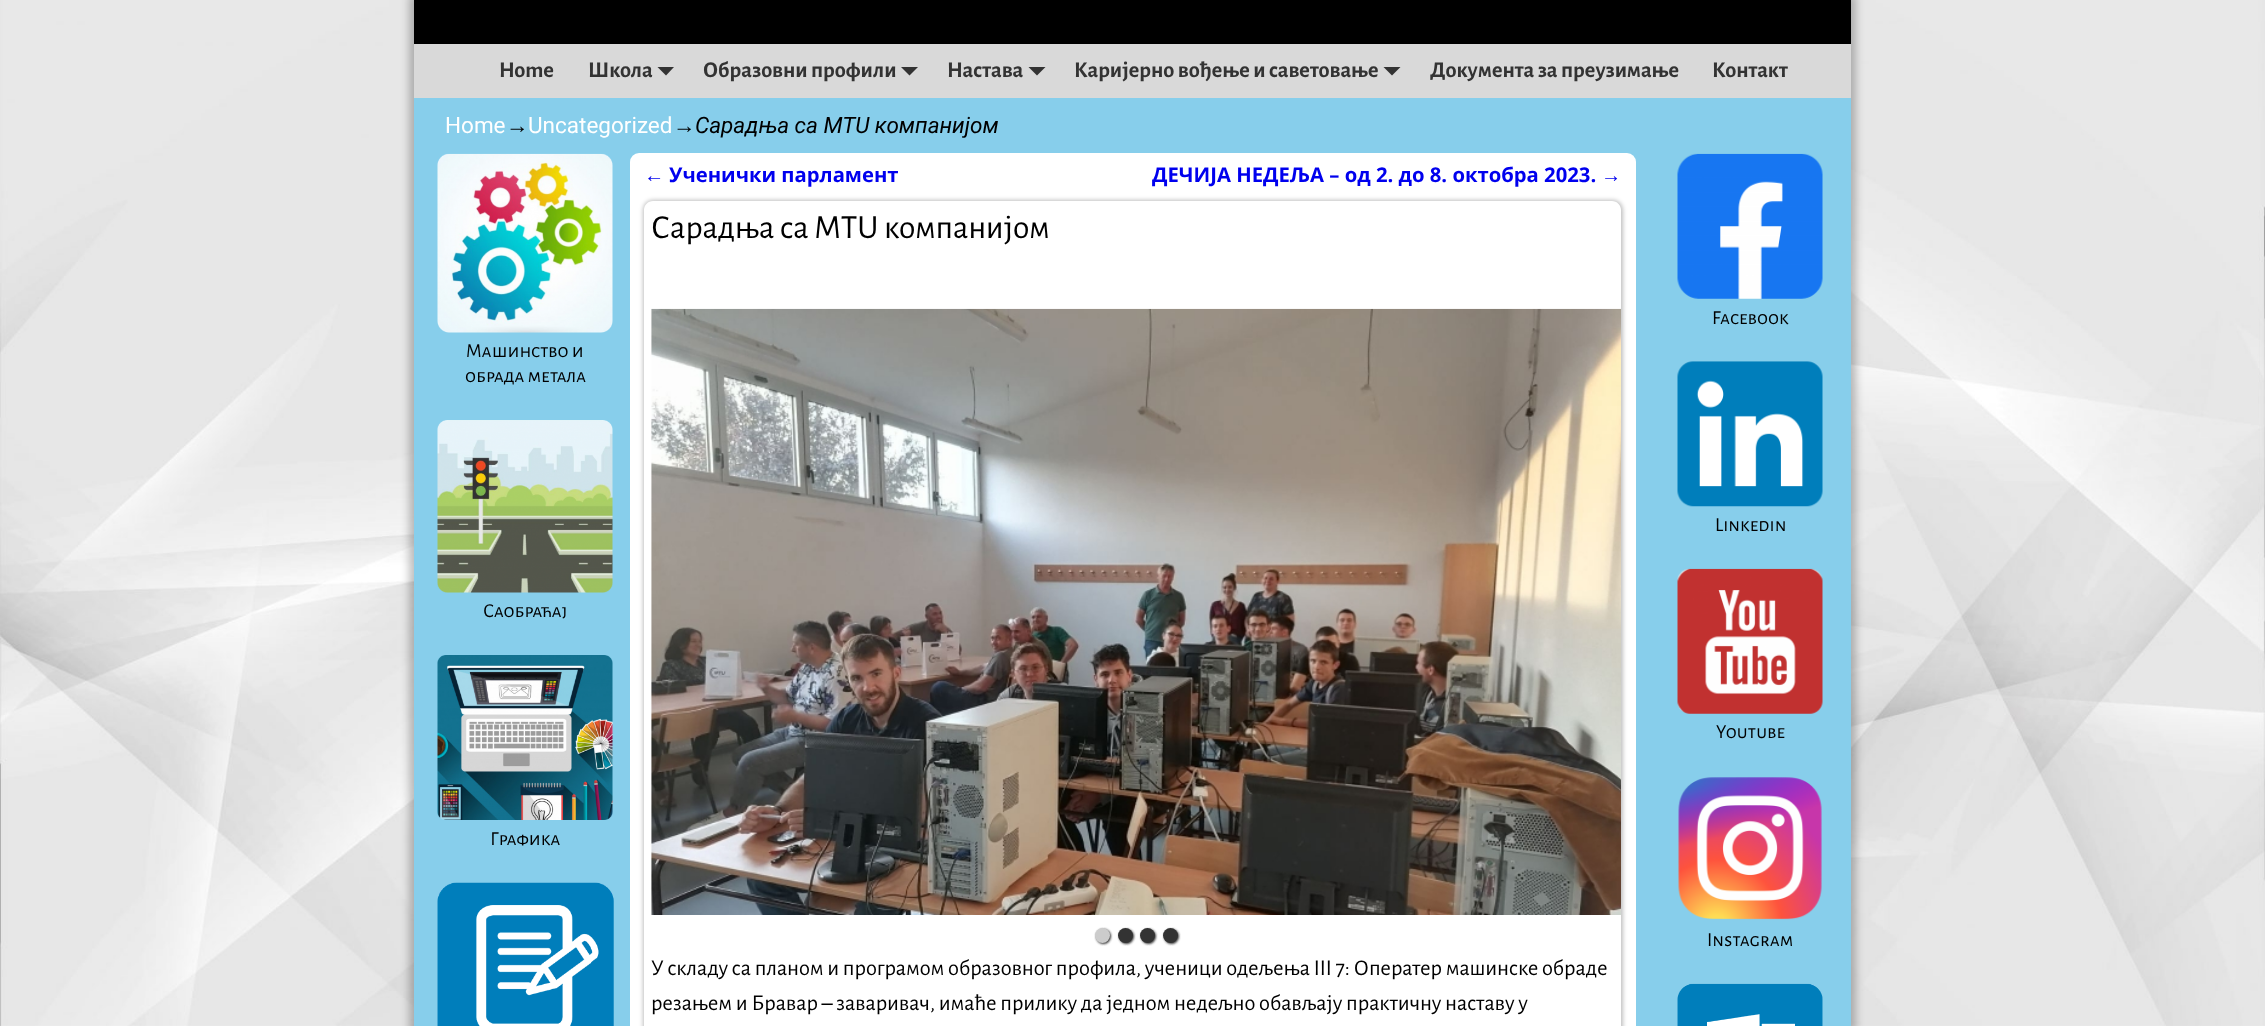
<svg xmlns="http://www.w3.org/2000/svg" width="2265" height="1026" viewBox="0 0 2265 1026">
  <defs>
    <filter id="blur1" x="-50%" y="-200%" width="200%" height="500%"><feGaussianBlur stdDeviation="4"/></filter>
    <clipPath id="clip1"><path d="M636 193H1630V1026H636ZM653 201H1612C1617 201 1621 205 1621 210V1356C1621 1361 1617 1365 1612 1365H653C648 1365 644 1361 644 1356V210C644 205 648 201 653 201Z" clip-rule="evenodd"/></clipPath>
    <filter id="blur2" x="-50%" y="-200%" width="200%" height="500%"><feGaussianBlur stdDeviation="2"/></filter>
    <filter id="blur3" x="-50%" y="-200%" width="200%" height="500%"><feGaussianBlur stdDeviation="1"/></filter>
  </defs>
  <rect width="100%" height="100%" fill="#ffffff"/>
  <image x="0" y="0" width="2265" height="1026" href="img1.png"/>
  <rect x="409" y="-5" width="1447" height="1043" fill="#000000" fill-opacity="0.25" filter="url(#blur1)"/>
  <rect x="414" y="0" width="1437" height="44" fill="#000000"/>
  <rect x="414" y="44" width="1437" height="54" fill="#d9d9d9"/>
  <text x="499" y="77" font-family="Alegreya Sans" font-size="22.5" font-weight="bold" fill="#333333">Home</text>
  <text x="588" y="77" font-family="Alegreya Sans" font-size="22.5" font-weight="bold" fill="#333333">Школа</text>
  <path d="M657.5 67H674L666 75.5Z" fill="#333333"/>
  <text x="703" y="77" font-family="Alegreya Sans" font-size="22.5" font-weight="bold" fill="#333333">Образовни профили</text>
  <path d="M901 67H918L909.5 75.5Z" fill="#333333"/>
  <text x="947" y="77" font-family="Alegreya Sans" font-size="22.5" font-weight="bold" fill="#333333">Настава</text>
  <path d="M1028.5 67H1045.5L1037 75.5Z" fill="#333333"/>
  <text x="1074" y="77" font-family="Alegreya Sans" font-size="22.5" font-weight="bold" fill="#333333">Каријерно вођење и саветовање</text>
  <path d="M1383.5 67H1400.5L1392 75.5Z" fill="#333333"/>
  <text x="1430" y="77" font-family="Alegreya Sans" font-size="22.5" font-weight="bold" fill="#333333">Документа за преузимање</text>
  <text x="1712" y="77" font-family="Alegreya Sans" font-size="22.5" font-weight="bold" fill="#333333">Контакт</text>
  <rect x="414" y="98" width="1437" height="928" fill="#87ceeb"/>
  <text x="445" y="133" font-family="Roboto" font-size="22.5" fill="#ffffff">Home</text>
  <text x="506" y="133" font-family="Liberation Sans" font-size="22.5" fill="#000000">→</text>
  <text x="528" y="133" font-family="Roboto" font-size="22.5" fill="#ffffff">Uncategorized</text>
  <text x="673" y="133" font-family="Liberation Sans" font-size="22.5" fill="#000000">→</text>
  <text x="695" y="133" font-family="Roboto" font-size="22.5" font-style="italic" fill="#000000">Сарадња са MTU компанијом</text>
  <image x="437" y="153" width="176" height="180" href="img2.png"/>
  <text x="466" y="357" font-family="Alegreya Sans SC" font-size="19.75" fill="#000000">Maшинство и</text>
  <text x="465" y="382" font-family="Alegreya Sans SC" font-size="19.75" fill="#000000">обрада метала</text>
  <image x="437" y="420" width="176" height="173" href="img3.png"/>
  <text x="483" y="617" font-family="Alegreya Sans SC" font-size="19.75" fill="#000000">Саобраћај</text>
  <image x="437" y="655" width="176" height="165" href="img4.png"/>
  <text x="490" y="845" font-family="Alegreya Sans SC" font-size="19.75" fill="#000000">Графика</text>
  <image x="437" y="882" width="177" height="144" href="img5.png"/>
  <rect x="630" y="153" width="1006" height="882" rx="9" fill="#ffffff"/>
  <text x="644" y="182" font-family="Liberation Sans" font-size="20.25" fill="#0000ee">←</text>
  <text x="669" y="182" font-family="Open Sans" font-size="20.25" font-weight="bold" fill="#0000ee">Ученички парламент</text>
  <text x="1152" y="182" font-family="Open Sans" font-size="20.25" font-weight="bold" fill="#0000ee">ДЕЧИЈА НЕДЕЉА – од 2. до 8. октобра 2023.</text>
  <text x="1601" y="182" font-family="Liberation Sans" font-size="20.25" fill="#0000ee">→</text>
  <g clip-path="url(#clip1)">
    <rect x="643" y="200" width="980" height="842" rx="10" fill="#000000" fill-opacity="0.25" filter="url(#blur2)"/>
  </g>
  <text x="651" y="238" font-family="Alegreya Sans" font-size="33.75" fill="#000000">Сарадња са MTU компанијом</text>
  <image x="651" y="308" width="970" height="607" href="img6.png"/>
  <rect x="1096" y="929" width="15" height="15" rx="7.5" fill="#333333" filter="url(#blur3)"/>
  <circle cx="1102.5" cy="935.5" r="7.5" fill="#cccccc"/>
  <rect x="1119" y="929" width="15" height="15" rx="7.5" fill="#333333" filter="url(#blur3)"/>
  <circle cx="1125.5" cy="935.5" r="7.5" fill="#333333"/>
  <rect x="1141" y="929" width="15" height="15" rx="7.5" fill="#333333" filter="url(#blur3)"/>
  <circle cx="1147.5" cy="935.5" r="7.5" fill="#333333"/>
  <rect x="1164" y="929" width="15" height="15" rx="7.5" fill="#333333" filter="url(#blur3)"/>
  <circle cx="1170.5" cy="935.5" r="7.5" fill="#333333"/>
  <text x="651" y="975" font-family="Alegreya Sans" font-size="22.5" fill="#000000">У складу са планом и програмом образовног профила, ученици одељења III 7: Оператер машинске обраде</text>
  <text x="651" y="1010" font-family="Alegreya Sans" font-size="22.5" fill="#000000">резањем и Бравар – заваривач, имаће прилику да једном недељно обављају практичну наставу у</text>
  <image x="1677" y="153" width="146" height="146" href="img7.png"/>
  <text x="1712" y="324" font-family="Alegreya Sans SC" font-size="19.75" fill="#000000">Facebook</text>
  <image x="1677" y="361" width="146" height="146" href="img8.png"/>
  <text x="1715" y="531" font-family="Alegreya Sans SC" font-size="19.75" fill="#000000">Linkedin</text>
  <image x="1677" y="568" width="146" height="146" href="img9.png"/>
  <text x="1716" y="738" font-family="Alegreya Sans SC" font-size="19.75" fill="#000000">Youtube</text>
  <image x="1678" y="777" width="144" height="143" href="img10.png"/>
  <text x="1707" y="946" font-family="Alegreya Sans SC" font-size="19.75" fill="#000000">Instagram</text>
  <image x="1677" y="983" width="146" height="43" href="img11.png"/>
</svg>
